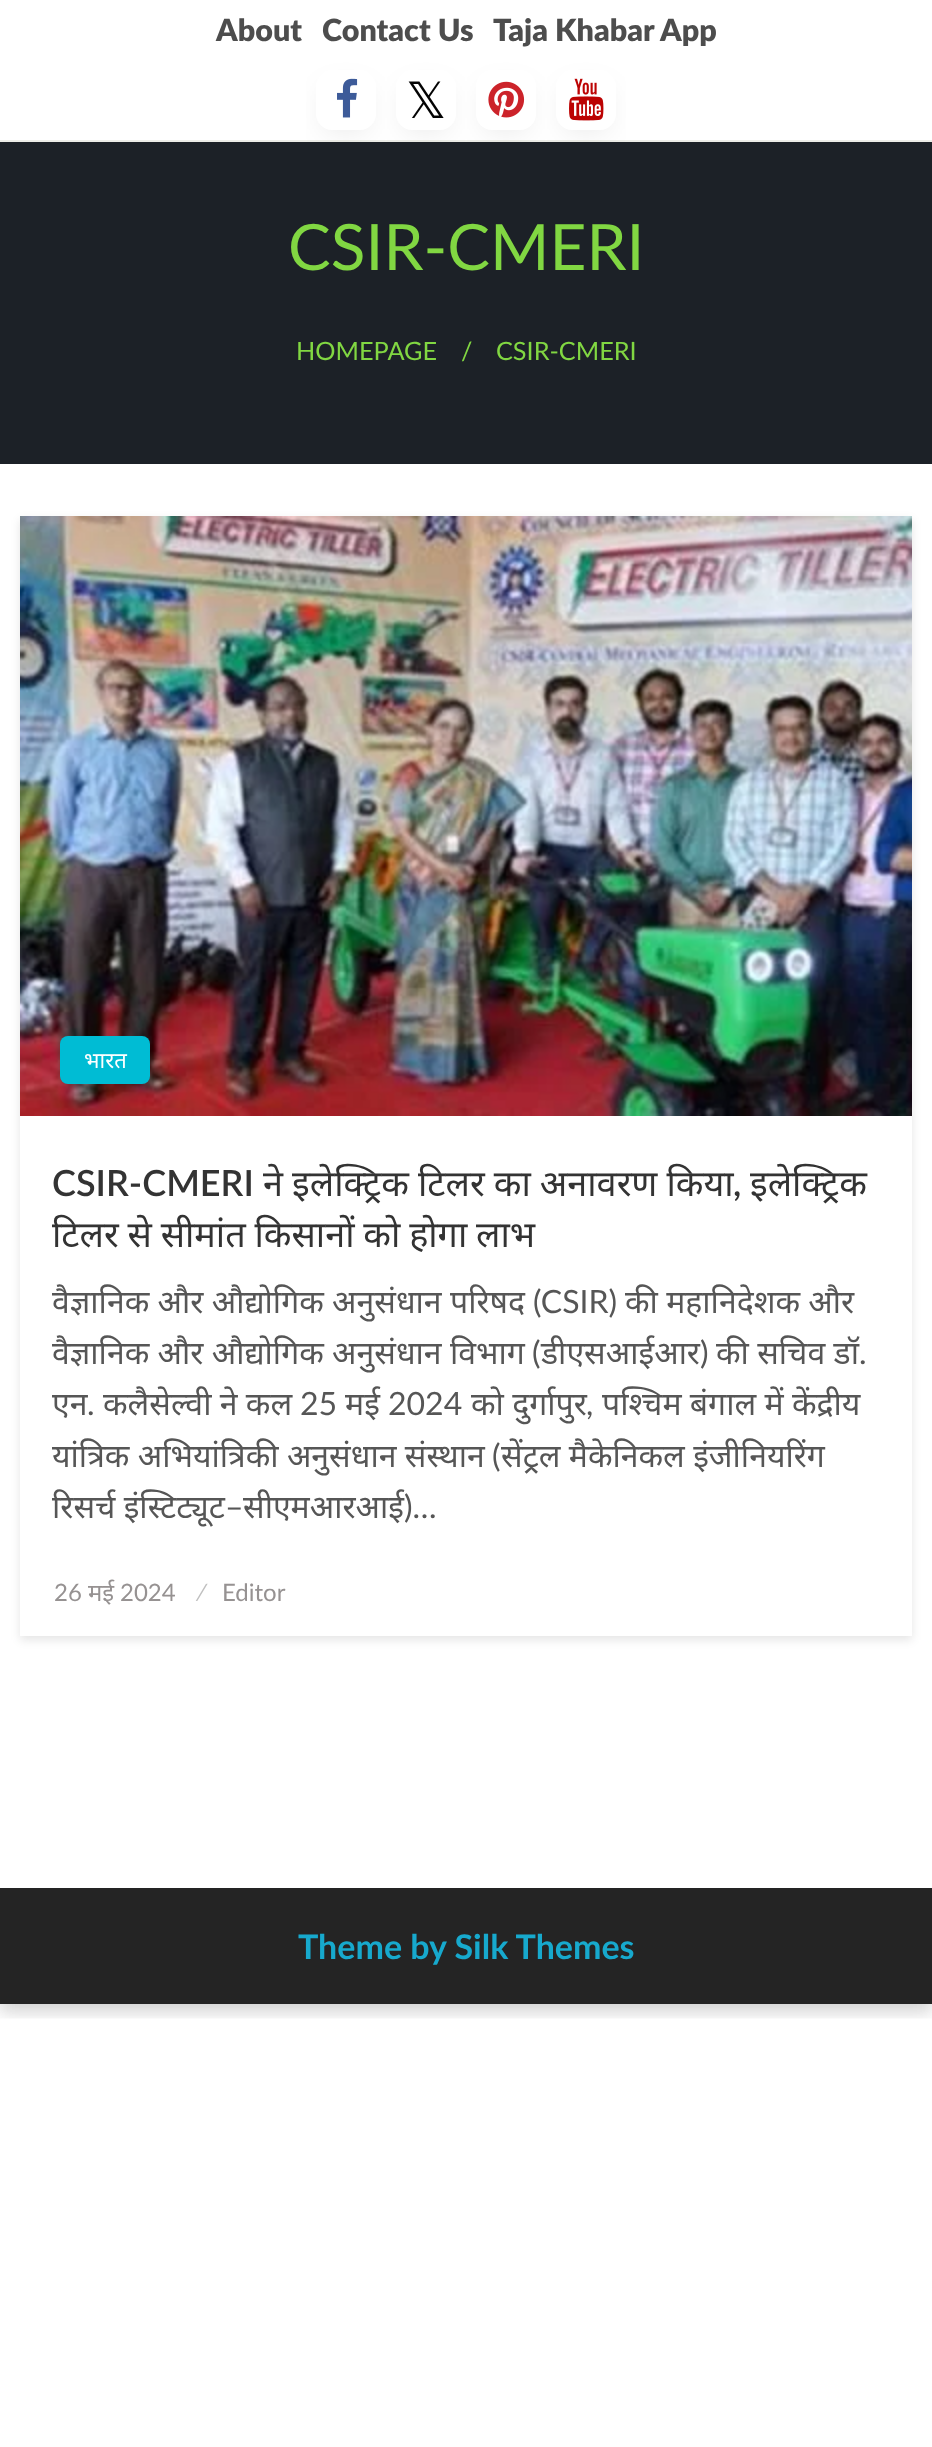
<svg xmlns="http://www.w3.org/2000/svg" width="932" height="2447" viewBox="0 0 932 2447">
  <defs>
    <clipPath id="clip1"><rect x="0" y="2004" width="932" height="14"/></clipPath>
    <filter id="blur1" x="-50%" y="-200%" width="200%" height="500%"><feGaussianBlur stdDeviation="10"/></filter>
    <clipPath id="clip2"><rect x="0" y="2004" width="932" height="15"/></clipPath>
    <filter id="blur2" x="-50%" y="-200%" width="200%" height="500%"><feGaussianBlur stdDeviation="8"/></filter>
    <filter id="blur3" x="-50%" y="-200%" width="200%" height="500%"><feGaussianBlur stdDeviation="15"/></filter>
    <clipPath id="clip3"><path d="M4 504H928V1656H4ZM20 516H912V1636H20Z" clip-rule="evenodd"/></clipPath>
    <filter id="blur4" x="-50%" y="-200%" width="200%" height="500%"><feGaussianBlur stdDeviation="5"/></filter>
  </defs>
  <rect width="100%" height="100%" fill="#ffffff"/>
  <g clip-path="url(#clip1)">
    <rect x="0" y="6" width="932" height="2004" fill="#000000" fill-opacity="0.09" filter="url(#blur1)"/>
  </g>
  <g clip-path="url(#clip2)">
    <rect x="0" y="8" width="932" height="2004" fill="#000000" fill-opacity="0.1" filter="url(#blur2)"/>
  </g>
  <rect x="0" y="140" width="932" height="2" fill="#ecede7"/>
  <text x="216" y="41" font-family="Lato" font-size="30.5" font-weight="800" fill="#4d4d4d">About</text>
  <text x="322" y="41" font-family="Lato" font-size="30.5" font-weight="800" fill="#4d4d4d">Contact Us</text>
  <text x="493" y="41" font-family="Lato" font-size="30.5" font-weight="800" fill="#4d4d4d">Taja Khabar App</text>
  <rect x="326" y="90" width="40" height="40" rx="6" fill="#000000" fill-opacity="0.1" filter="url(#blur3)"/>
  <rect x="316" y="70" width="60" height="60" rx="16" fill="#ffffff"/>
  <image x="337" y="78" width="21" height="40" href="img1.png"/>
  <rect x="406" y="90" width="40" height="40" rx="6" fill="#000000" fill-opacity="0.1" filter="url(#blur3)"/>
  <rect x="396" y="70" width="60" height="60" rx="16" fill="#ffffff"/>
  <text x="406" y="118" font-family="DejaVu Sans" font-size="50" fill="#030303">𝕏</text>
  <rect x="486" y="90" width="40" height="40" rx="6" fill="#000000" fill-opacity="0.1" filter="url(#blur3)"/>
  <rect x="476" y="70" width="60" height="60" rx="16" fill="#ffffff"/>
  <image x="488" y="81" width="37" height="37" href="img2.png"/>
  <rect x="566" y="90" width="40" height="40" rx="6" fill="#000000" fill-opacity="0.1" filter="url(#blur3)"/>
  <rect x="556" y="70" width="60" height="60" rx="16" fill="#ffffff"/>
  <image x="569" y="78" width="35" height="43" href="img3.png"/>
  <rect x="0" y="142" width="932" height="322" fill="#1c2127"/>
  <text x="288" y="270" font-family="Lato" font-size="64" fill="#81d742">CSIR-CMERI</text>
  <text x="296" y="360" font-family="Lato" font-size="25.25" fill="#81d742">HOMEPAGE</text>
  <text x="461" y="360" font-family="Lato" font-size="25.25" fill="#81d742">/</text>
  <text x="496" y="360" font-family="Lato" font-size="25.25" fill="#81d742">CSIR-CMERI</text>
  <g clip-path="url(#clip3)">
    <rect x="20" y="520" width="892" height="1120" fill="#000000" fill-opacity="0.1" filter="url(#blur4)"/>
  </g>
  <image x="20" y="516" width="892" height="600" href="img4.png"/>
  <rect x="60" y="1036" width="90" height="48" rx="8" fill="#00bcd4"/>
  <text x="84" y="1068" font-family="Noto Sans" font-size="22" fill="#ffffff">भारत</text>
  <text x="52" y="1196" font-family="Lato" font-size="36" font-weight="600" fill="#333333">CSIR-CMERI</text>
  <text x="263" y="1196" word-spacing="-0.25" font-family="Noto Sans" font-size="36" fill="#333333">ने इलेक्ट्रिक टिलर का अनावरण किया</text>
  <text x="733" y="1196" font-family="Lato" font-size="36" font-weight="600" fill="#333333">,</text>
  <text x="750" y="1196" font-family="Noto Sans" font-size="36" fill="#333333">इलेक्ट्रिक</text>
  <text x="52" y="1247" word-spacing="-0.5" font-family="Noto Sans" font-size="36" fill="#333333">टिलर से सीमांत किसानों को होगा लाभ</text>
  <text x="52" y="1313" font-family="Noto Sans" font-size="32" fill="#565656">वैज्ञानिक और औद्योगिक अनुसंधान परिषद</text>
  <text x="533" y="1313" font-family="Lato" font-size="32" fill="#565656">(CSIR)</text>
  <text x="625" y="1313" font-family="Noto Sans" font-size="32" fill="#565656">की महानिदेशक और</text>
  <text x="52" y="1364" font-family="Noto Sans" font-size="32" fill="#565656">वैज्ञानिक और औद्योगिक अनुसंधान विभाग</text>
  <text x="532" y="1364" font-family="Lato" font-size="32" fill="#565656">(</text>
  <text x="541" y="1364" font-family="Noto Sans" font-size="32" fill="#565656">डीएसआईआर</text>
  <text x="700" y="1364" font-family="Lato" font-size="32" fill="#565656">)</text>
  <text x="716" y="1364" font-family="Noto Sans" font-size="32" fill="#565656">की सचिव डॉ</text>
  <text x="859" y="1364" font-family="Lato" font-size="32" fill="#565656">.</text>
  <text x="52" y="1415" font-family="Noto Sans" font-size="32" fill="#565656">एन</text>
  <text x="87" y="1415" font-family="Lato" font-size="32" fill="#565656">.</text>
  <text x="103" y="1415" font-family="Noto Sans" font-size="32" fill="#565656">कलैसेल्वी ने कल</text>
  <text x="300" y="1415" font-family="Lato" font-size="32" fill="#565656">25</text>
  <text x="345" y="1415" font-family="Noto Sans" font-size="32" fill="#565656">मई</text>
  <text x="388" y="1415" font-family="Lato" font-size="32" fill="#565656">2024</text>
  <text x="471" y="1415" font-family="Noto Sans" font-size="32" fill="#565656">को दुर्गापुर</text>
  <text x="586" y="1415" font-family="Lato" font-size="32" fill="#565656">,</text>
  <text x="602" y="1415" font-family="Noto Sans" font-size="32" fill="#565656">पश्चिम बंगाल में केंद्रीय</text>
  <text x="52" y="1467" font-family="Noto Sans" font-size="32" fill="#565656">यांत्रिक अभियांत्रिकी अनुसंधान संस्थान</text>
  <text x="492" y="1467" font-family="Lato" font-size="32" fill="#565656">(</text>
  <text x="501" y="1467" font-family="Noto Sans" font-size="32" fill="#565656">सेंट्रल मैकेनिकल इंजीनियरिंग</text>
  <text x="52" y="1518" font-family="Noto Sans" font-size="32" fill="#565656">रिसर्च इंस्टिट्यूट</text>
  <text x="225" y="1518" font-family="Lato" font-size="32" fill="#565656">–</text>
  <text x="243" y="1518" font-family="Noto Sans" font-size="32" fill="#565656">सीएमआरआई</text>
  <text x="404" y="1518" font-family="Lato" font-size="32" fill="#565656">)…</text>
  <text x="54" y="1601" font-family="Lato" font-size="24" fill="#969292">26</text>
  <text x="88" y="1601" font-family="Noto Sans" font-size="24" fill="#969292">मई</text>
  <text x="120" y="1601" font-family="Lato" font-size="24" fill="#969292">2024</text>
  <text x="200" y="1601" font-family="Lato" font-size="24" fill="#c0c0c0">⁄</text>
  <text x="222" y="1601" font-family="Lato" font-size="24" fill="#969292">Editor</text>
  <rect x="0" y="1888" width="932" height="116" fill="#242424"/>
  <text x="298" y="1959" font-family="Lato" font-size="34" font-weight="bold" fill="#17a9cd">Theme by Silk Themes</text>
</svg>
